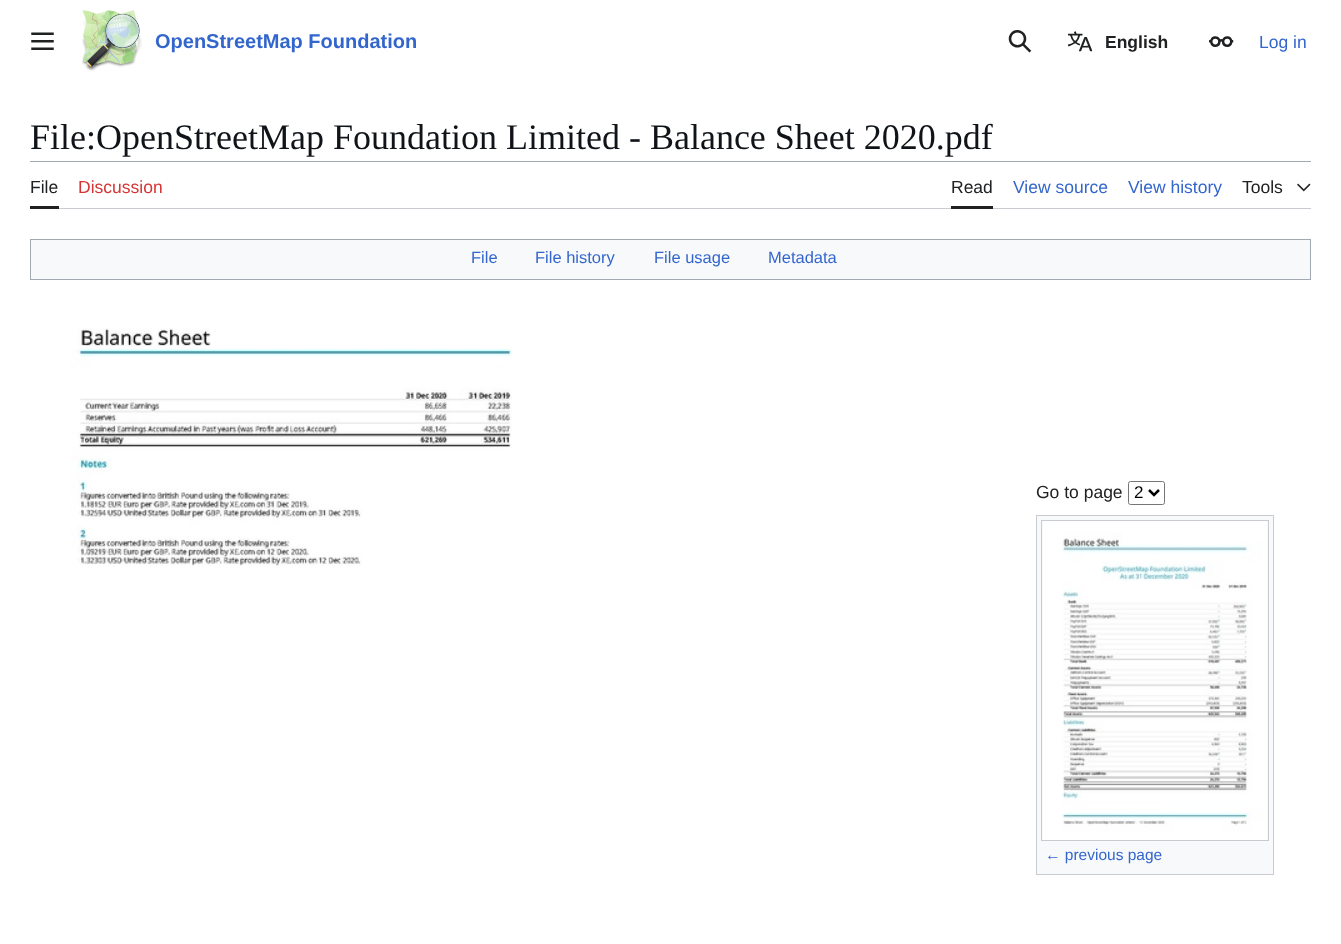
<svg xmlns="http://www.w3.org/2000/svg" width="1341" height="944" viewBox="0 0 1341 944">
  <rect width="100%" height="100%" fill="#ffffff"/>
  <image x="31" y="32" width="23" height="18" href="img1.png"/>
  <image x="82" y="10" width="60" height="61" href="img2.png"/>
  <text x="155" y="48" font-family="Liberation Sans" font-size="20" font-weight="bold" fill="#3366cc">OpenStreetMap Foundation</text>
  <image x="1008" y="30" width="24" height="23" href="img3.png"/>
  <image x="1068" y="31" width="25" height="21" href="img4.png"/>
  <text x="1105" y="48" font-family="Liberation Sans" font-size="17.5" font-weight="bold" fill="#202122">English</text>
  <image x="1209" y="36" width="25" height="11" href="img5.png"/>
  <text x="1259" y="48" font-family="Liberation Sans" font-size="17.5" fill="#3366cc">Log in</text>
  <text x="30" y="149" font-family="Liberation Serif" font-size="36" fill="#101418">File:OpenStreetMap Foundation Limited - Balance Sheet 2020.pdf</text>
  <rect x="30" y="161" width="1281" height="1" fill="#a2a9b1"/>
  <rect x="59" y="208" width="1252" height="1" fill="#c8ccd1"/>
  <rect x="30" y="206" width="29" height="3" fill="#202122"/>
  <text x="30" y="193" font-family="Liberation Sans" font-size="17.5" fill="#202122">File</text>
  <text x="78" y="193" font-family="Liberation Sans" font-size="17.5" fill="#d73333">Discussion</text>
  <rect x="951" y="206" width="42" height="3" fill="#202122"/>
  <text x="951" y="193" font-family="Liberation Sans" font-size="17.5" fill="#202122">Read</text>
  <text x="1013" y="193" font-family="Liberation Sans" font-size="17.5" fill="#3366cc">View source</text>
  <text x="1128" y="193" font-family="Liberation Sans" font-size="17.5" fill="#3366cc">View history</text>
  <text x="1242" y="193" font-family="Liberation Sans" font-size="17.5" fill="#202122">Tools</text>
  <image x="1297" y="183" width="14" height="9" href="img6.png"/>
  <rect x="30.5" y="239.5" width="1280" height="40" fill="#f8f9fa" stroke="#a2a9b1"/>
  <text x="471" y="263" font-family="Liberation Sans" font-size="16.5" fill="#3366cc">File</text>
  <text x="535" y="263" font-family="Liberation Sans" font-size="16.5" fill="#3366cc">File history</text>
  <text x="654" y="263" font-family="Liberation Sans" font-size="16.5" fill="#3366cc">File usage</text>
  <text x="768" y="263" font-family="Liberation Sans" font-size="16.5" fill="#3366cc">Metadata</text>
  <image x="70" y="328" width="442" height="238" href="img7.png"/>
  <text x="1036" y="498" font-family="Liberation Sans" font-size="17.5" fill="#202122">Go to page</text>
  <rect x="1128.5" y="481.5" width="36" height="23" rx="2" fill="none" stroke="#767676"/>
  <path d="M1149 490L1154 495L1159 490" fill="none" stroke="#000000" stroke-width="2.5"/>
  <text x="1134" y="498" font-family="Liberation Sans" font-size="17" fill="#000000">2</text>
  <rect x="1037" y="516" width="236" height="358" fill="#f8f9fa"/>
  <rect x="1036" y="515" width="238" height="1" fill="#c8ccd1"/>
  <rect x="1036" y="874" width="238" height="1" fill="#c8ccd1"/>
  <rect x="1273" y="515" width="1" height="360" fill="#c8ccd1"/>
  <rect x="1036" y="515" width="1" height="360" fill="#c8ccd1"/>
  <rect x="1041.5" y="520.5" width="227" height="320" fill="none" stroke="#c8ccd1"/>
  <image x="1043" y="521" width="224" height="319" href="img8.png"/>
  <text x="1045" y="860" font-family="Liberation Sans" font-size="15.5" fill="#3366cc">← previous page</text>
</svg>
